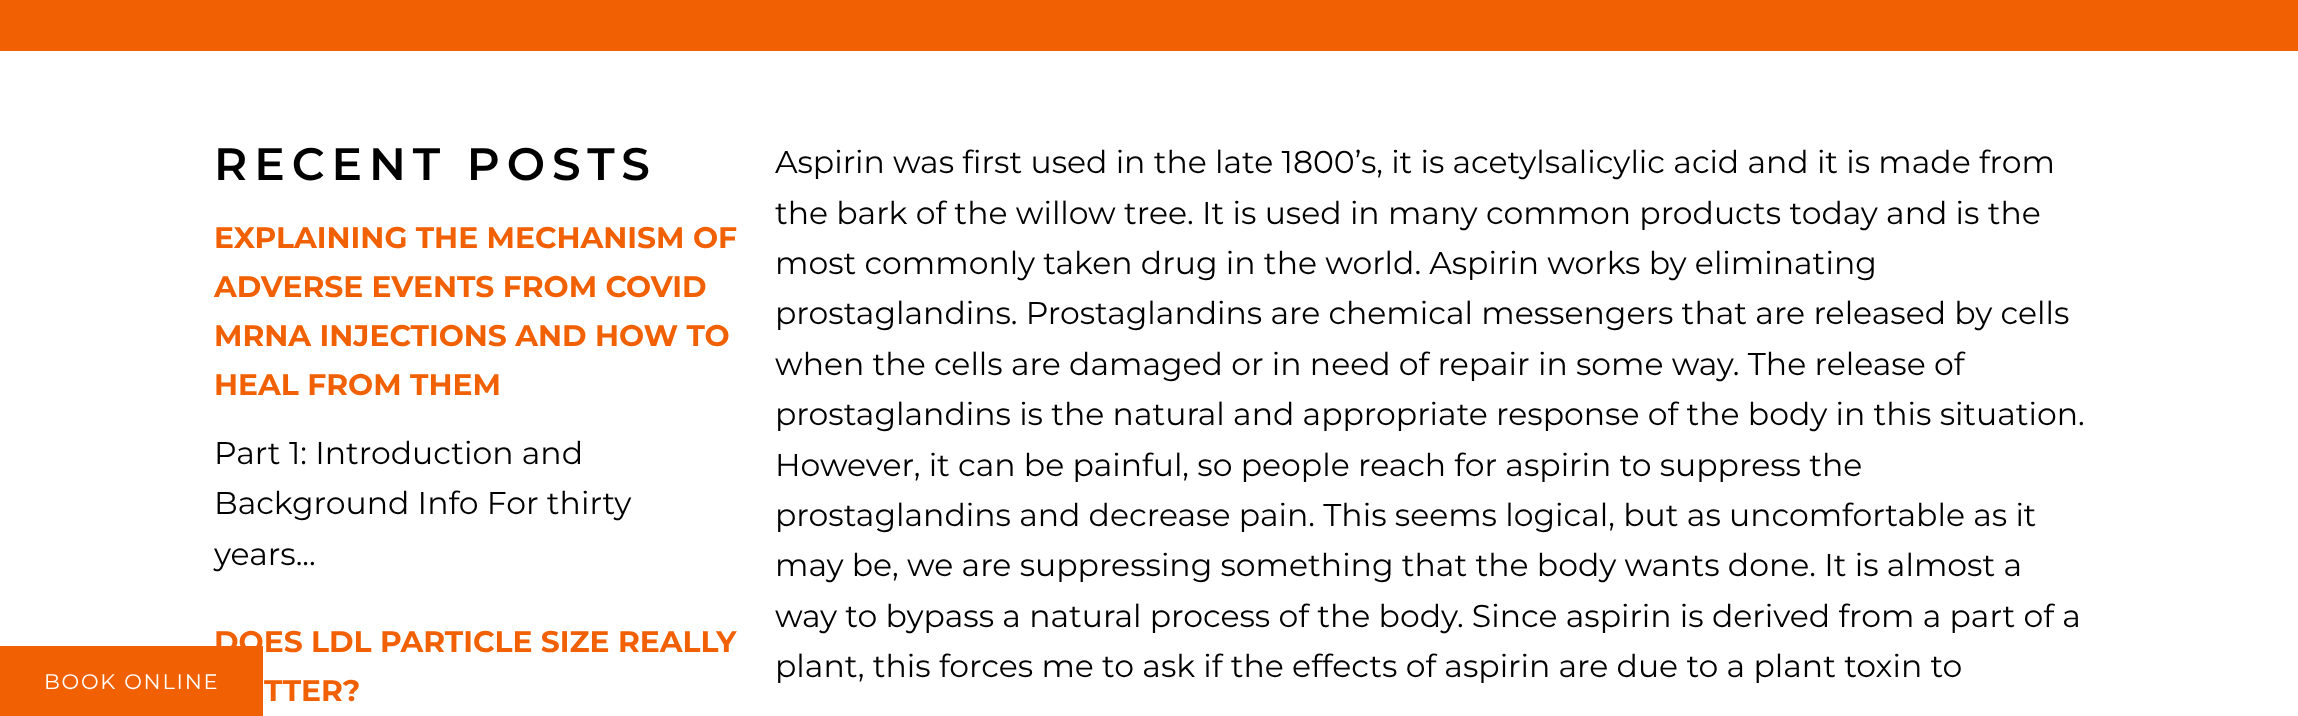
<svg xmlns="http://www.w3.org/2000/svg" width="2298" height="716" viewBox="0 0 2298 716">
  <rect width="100%" height="100%" fill="#ffffff"/>
  <rect x="0" y="646" width="263" height="70" fill="#f16002"/>
  <text x="44" y="689" font-family="Montserrat" font-size="21" letter-spacing="1.75" fill="#ffffff">BOOK ONLINE</text>
  <rect x="0" y="0" width="2298" height="51" fill="#f16002"/>
  <text x="214" y="180" font-family="Montserrat" font-size="45.5" font-weight="600" letter-spacing="7" fill="#000000">RECENT POSTS</text>
  <text x="214" y="248" font-family="Montserrat" font-size="29.75" font-weight="bold" fill="#f16002">EXPLAINING THE MECHANISM OF</text>
  <text x="214" y="297" font-family="Montserrat" font-size="29.75" font-weight="bold" fill="#f16002">ADVERSE EVENTS FROM COVID</text>
  <text x="214" y="346" font-family="Montserrat" font-size="29.75" font-weight="bold" fill="#f16002">MRNA INJECTIONS AND HOW TO</text>
  <text x="214" y="395" font-family="Montserrat" font-size="29.75" font-weight="bold" fill="#f16002">HEAL FROM THEM</text>
  <text x="214" y="464" font-family="Montserrat" font-size="31.5" fill="#000000">Part 1: Introduction and</text>
  <text x="214" y="514" font-family="Montserrat" font-size="31.5" fill="#000000">Background Info For thirty</text>
  <text x="214" y="565" font-family="Montserrat" font-size="31.5" fill="#000000">years...</text>
  <text x="214" y="652" font-family="Montserrat" font-size="29.75" font-weight="bold" fill="#f16002">DOES LDL PARTICLE SIZE REALLY</text>
  <text x="264" y="701" font-family="Montserrat" font-size="29.75" font-weight="bold" fill="#f16002">TTER?</text>
  <text x="775" y="173" font-family="Montserrat" font-size="31.5" fill="#000000">Aspirin was first used in the late 1800’s, it is acetylsalicylic acid and it is made from</text>
  <text x="775" y="224" font-family="Montserrat" font-size="31.5" fill="#000000">the bark of the willow tree. It is used in many common products today and is the</text>
  <text x="775" y="274" font-family="Montserrat" font-size="31.5" fill="#000000">most commonly taken drug in the world. Aspirin works by eliminating</text>
  <text x="775" y="324" font-family="Montserrat" font-size="31.5" fill="#000000">prostaglandins. Prostaglandins are chemical messengers that are released by cells</text>
  <text x="775" y="375" font-family="Montserrat" font-size="31.5" fill="#000000">when the cells are damaged or in need of repair in some way. The release of</text>
  <text x="775" y="425" font-family="Montserrat" font-size="31.5" fill="#000000">prostaglandins is the natural and appropriate response of the body in this situation.</text>
  <text x="775" y="476" font-family="Montserrat" font-size="31.5" fill="#000000">However, it can be painful, so people reach for aspirin to suppress the</text>
  <text x="775" y="526" font-family="Montserrat" font-size="31.5" fill="#000000">prostaglandins and decrease pain. This seems logical, but as uncomfortable as it</text>
  <text x="775" y="576" font-family="Montserrat" font-size="31.5" fill="#000000">may be, we are suppressing something that the body wants done. It is almost a</text>
  <text x="775" y="627" font-family="Montserrat" font-size="31.5" fill="#000000">way to bypass a natural process of the body. Since aspirin is derived from a part of a</text>
  <text x="775" y="677" font-family="Montserrat" font-size="31.5" fill="#000000">plant, this forces me to ask if the effects of aspirin are due to a plant toxin to</text>
</svg>
